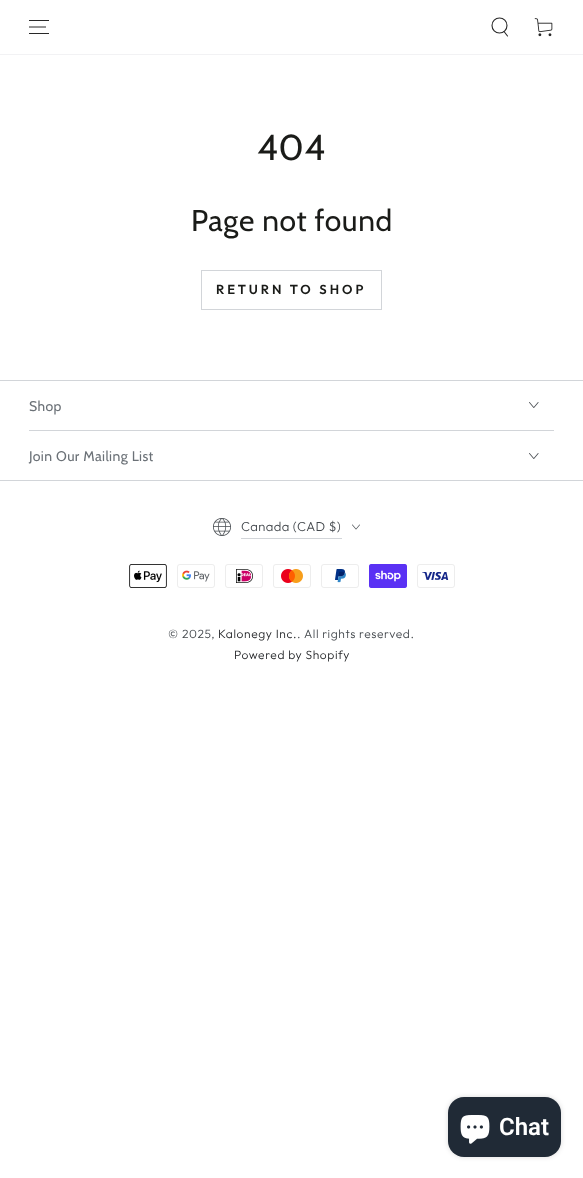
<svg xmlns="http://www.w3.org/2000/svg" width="583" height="1178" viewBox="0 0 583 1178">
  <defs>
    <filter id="blur1" x="-50%" y="-200%" width="200%" height="500%"><feGaussianBlur stdDeviation="2.5"/></filter>
  </defs>
  <rect width="100%" height="100%" fill="#ffffff"/>
  <rect x="0" y="54" width="583" height="1" fill="#f2f2f4"/>
  <path d="M29 33.5H49M29 27H46M29 20.5H49" fill="none" stroke="#282828"/>
  <circle cx="499.5" cy="25.5" r="7.5" fill="none" stroke="#282828" stroke-width="1.1"/>
  <path d="M504 31.5L507.5 36" fill="none" stroke="#282828" stroke-width="1.1" stroke-linecap="round"/>
  <image x="534" y="18" width="19" height="19" href="img1.png"/>
  <text x="257" y="160" font-family="Cabin" font-size="36" letter-spacing="0.6" fill="#1a1b18">404</text>
  <text x="191" y="231" font-family="Cabin" font-size="30" letter-spacing="0.6" fill="#1a1b18">Page not found</text>
  <rect x="201.5" y="270.5" width="180" height="39" fill="none" stroke="#d2d5d9"/>
  <text x="216" y="294" font-family="Outfit" font-size="13" font-weight="600" letter-spacing="3" fill="#1a1b18">RETURN TO SHOP</text>
  <rect x="0" y="380" width="583" height="1" fill="#d2d5d9"/>
  <rect x="29" y="430" width="525" height="1" fill="#d2d5d9"/>
  <text x="29" y="411" font-family="Cabin" font-size="14" letter-spacing="0.4" fill="#6b7177">Shop</text>
  <image x="529" y="402" width="10" height="6" href="img2.png"/>
  <text x="29" y="461" font-family="Cabin" font-size="14" letter-spacing="0.4" fill="#6b7177">Join Our Mailing List</text>
  <image x="529" y="453" width="10" height="6" href="img2.png"/>
  <rect x="0" y="480" width="583" height="1" fill="#d2d5d9"/>
  <image x="213" y="518" width="18" height="18" href="img3.png"/>
  <rect x="241" y="538" width="101" height="1" fill="#d2d5d9"/>
  <text x="241" y="531" font-family="Outfit" font-size="13" font-weight="300" letter-spacing="0.4" fill="#42474c">Canada (CAD $)</text>
  <image x="352" y="524" width="8" height="6" href="img4.png"/>
  <image x="129" y="564" width="38" height="24" href="img5.png"/>
  <image x="177" y="564" width="38" height="24" href="img6.png"/>
  <image x="225" y="564" width="38" height="24" href="img7.png"/>
  <image x="273" y="564" width="38" height="24" href="img8.png"/>
  <image x="321" y="564" width="38" height="24" href="img9.png"/>
  <image x="369" y="564" width="38" height="24" href="img10.png"/>
  <image x="417" y="564" width="38" height="24" href="img11.png"/>
  <text x="168" y="638" font-family="Outfit" font-size="12" font-weight="300" letter-spacing="0.6" fill="#42474c">© 2025,</text>
  <text x="218" y="638" font-family="Outfit" font-size="12" font-weight="300" letter-spacing="0.6" fill="#212326">Kalonegy Inc.</text>
  <text x="297" y="638" font-family="Outfit" font-size="12" font-weight="300" letter-spacing="0.6" fill="#42474c">. All rights reserved.</text>
  <text x="234" y="659" font-family="Outfit" font-size="12" font-weight="300" letter-spacing="0.6" fill="#212326">Powered by Shopify</text>
  <rect x="448" y="1097" width="113" height="60" rx="16" fill="#000000" fill-opacity="0.15" filter="url(#blur1)"/>
  <rect x="448" y="1097" width="113" height="60" rx="16" fill="#202a36"/>
  <image x="460" y="1115" width="30" height="29" href="img12.png"/>
  <text x="499" y="1135" font-family="Roboto" font-size="24" font-weight="600" fill="#ffffff">Chat</text>
</svg>
